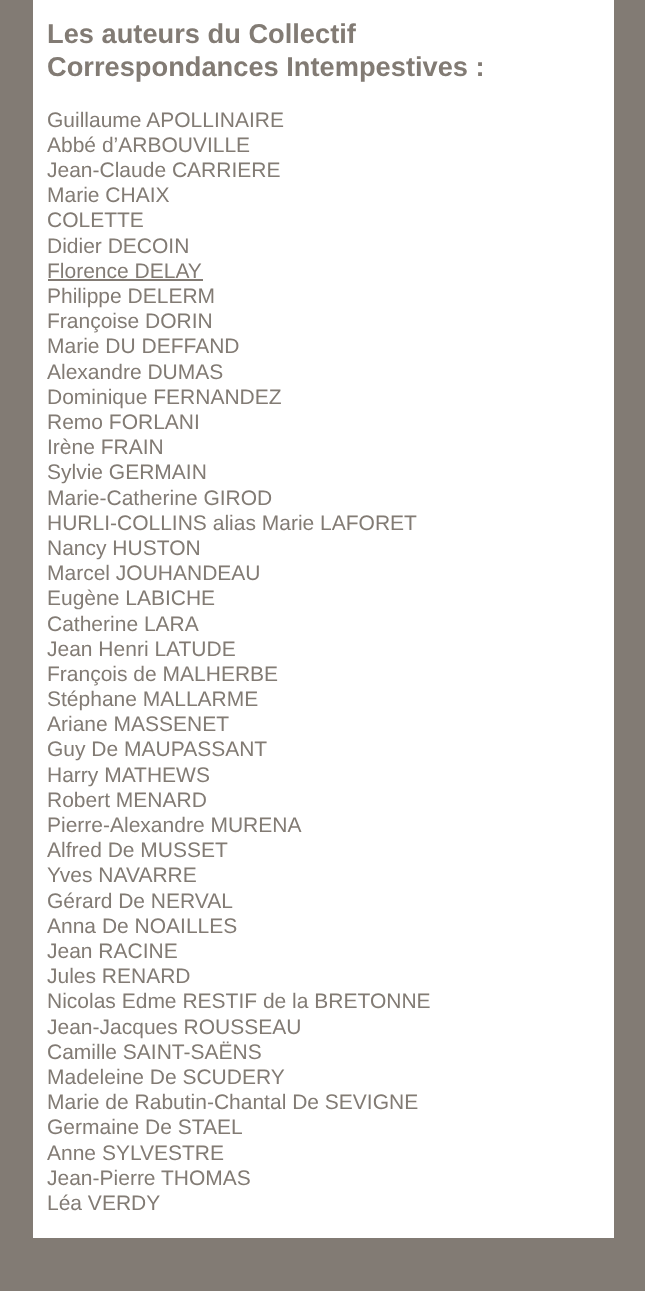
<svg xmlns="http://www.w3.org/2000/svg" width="645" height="1291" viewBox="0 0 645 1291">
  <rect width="100%" height="100%" fill="#827b74"/>
  <rect x="33" y="0" width="581" height="1238" fill="#ffffff"/>
  <text x="47" y="43" font-family="Liberation Sans" font-size="27.25" font-weight="bold" fill="#827b74">Les auteurs du Collectif</text>
  <text x="47" y="76" font-family="Liberation Sans" font-size="27.25" font-weight="bold" fill="#827b74">Correspondances Intempestives :</text>
  <text x="47" y="127" font-family="Liberation Sans" font-size="21" fill="#827b74">Guillaume APOLLINAIRE</text>
  <text x="47" y="152" font-family="Liberation Sans" font-size="21" fill="#827b74">Abbé d’ARBOUVILLE</text>
  <text x="47" y="177" font-family="Liberation Sans" font-size="21" fill="#827b74">Jean-Claude CARRIERE</text>
  <text x="47" y="202" font-family="Liberation Sans" font-size="21" fill="#827b74">Marie CHAIX</text>
  <text x="47" y="227" font-family="Liberation Sans" font-size="21" fill="#827b74">COLETTE</text>
  <text x="47" y="253" font-family="Liberation Sans" font-size="21" fill="#827b74">Didier DECOIN</text>
  <text x="47" y="278" font-family="Liberation Sans" font-size="21" fill="#827b74">Florence DELAY</text>
  <rect x="48" y="279" width="155" height="2" fill="#827b74"/>
  <text x="47" y="303" font-family="Liberation Sans" font-size="21" fill="#827b74">Philippe DELERM</text>
  <text x="47" y="328" font-family="Liberation Sans" font-size="21" fill="#827b74">Françoise DORIN</text>
  <text x="47" y="353" font-family="Liberation Sans" font-size="21" fill="#827b74">Marie DU DEFFAND</text>
  <text x="47" y="379" font-family="Liberation Sans" font-size="21" fill="#827b74">Alexandre DUMAS</text>
  <text x="47" y="404" font-family="Liberation Sans" font-size="21" fill="#827b74">Dominique FERNANDEZ</text>
  <text x="47" y="429" font-family="Liberation Sans" font-size="21" fill="#827b74">Remo FORLANI</text>
  <text x="47" y="454" font-family="Liberation Sans" font-size="21" fill="#827b74">Irène FRAIN</text>
  <text x="47" y="479" font-family="Liberation Sans" font-size="21" fill="#827b74">Sylvie GERMAIN</text>
  <text x="47" y="505" font-family="Liberation Sans" font-size="21" fill="#827b74">Marie-Catherine GIROD</text>
  <text x="47" y="530" font-family="Liberation Sans" font-size="21" fill="#827b74">HURLI-COLLINS alias Marie LAFORET</text>
  <text x="47" y="555" font-family="Liberation Sans" font-size="21" fill="#827b74">Nancy HUSTON</text>
  <text x="47" y="580" font-family="Liberation Sans" font-size="21" fill="#827b74">Marcel JOUHANDEAU</text>
  <text x="47" y="605" font-family="Liberation Sans" font-size="21" fill="#827b74">Eugène LABICHE</text>
  <text x="47" y="631" font-family="Liberation Sans" font-size="21" fill="#827b74">Catherine LARA</text>
  <text x="47" y="656" font-family="Liberation Sans" font-size="21" fill="#827b74">Jean Henri LATUDE</text>
  <text x="47" y="681" font-family="Liberation Sans" font-size="21" fill="#827b74">François de MALHERBE</text>
  <text x="47" y="706" font-family="Liberation Sans" font-size="21" fill="#827b74">Stéphane MALLARME</text>
  <text x="47" y="731" font-family="Liberation Sans" font-size="21" fill="#827b74">Ariane MASSENET</text>
  <text x="47" y="756" font-family="Liberation Sans" font-size="21" fill="#827b74">Guy De MAUPASSANT</text>
  <text x="47" y="782" font-family="Liberation Sans" font-size="21" fill="#827b74">Harry MATHEWS</text>
  <text x="47" y="807" font-family="Liberation Sans" font-size="21" fill="#827b74">Robert MENARD</text>
  <text x="47" y="832" font-family="Liberation Sans" font-size="21" fill="#827b74">Pierre-Alexandre MURENA</text>
  <text x="47" y="857" font-family="Liberation Sans" font-size="21" fill="#827b74">Alfred De MUSSET</text>
  <text x="47" y="882" font-family="Liberation Sans" font-size="21" fill="#827b74">Yves NAVARRE</text>
  <text x="47" y="908" font-family="Liberation Sans" font-size="21" fill="#827b74">Gérard De NERVAL</text>
  <text x="47" y="933" font-family="Liberation Sans" font-size="21" fill="#827b74">Anna De NOAILLES</text>
  <text x="47" y="958" font-family="Liberation Sans" font-size="21" fill="#827b74">Jean RACINE</text>
  <text x="47" y="983" font-family="Liberation Sans" font-size="21" fill="#827b74">Jules RENARD</text>
  <text x="47" y="1008" font-family="Liberation Sans" font-size="21" fill="#827b74">Nicolas Edme RESTIF de la BRETONNE</text>
  <text x="47" y="1034" font-family="Liberation Sans" font-size="21" fill="#827b74">Jean-Jacques ROUSSEAU</text>
  <text x="47" y="1059" font-family="Liberation Sans" font-size="21" fill="#827b74">Camille SAINT-SAËNS</text>
  <text x="47" y="1084" font-family="Liberation Sans" font-size="21" fill="#827b74">Madeleine De SCUDERY</text>
  <text x="47" y="1109" font-family="Liberation Sans" font-size="21" fill="#827b74">Marie de Rabutin-Chantal De SEVIGNE</text>
  <text x="47" y="1134" font-family="Liberation Sans" font-size="21" fill="#827b74">Germaine De STAEL</text>
  <text x="47" y="1160" font-family="Liberation Sans" font-size="21" fill="#827b74">Anne SYLVESTRE</text>
  <text x="47" y="1185" font-family="Liberation Sans" font-size="21" fill="#827b74">Jean-Pierre THOMAS</text>
  <text x="47" y="1210" font-family="Liberation Sans" font-size="21" fill="#827b74">Léa VERDY</text>
</svg>
